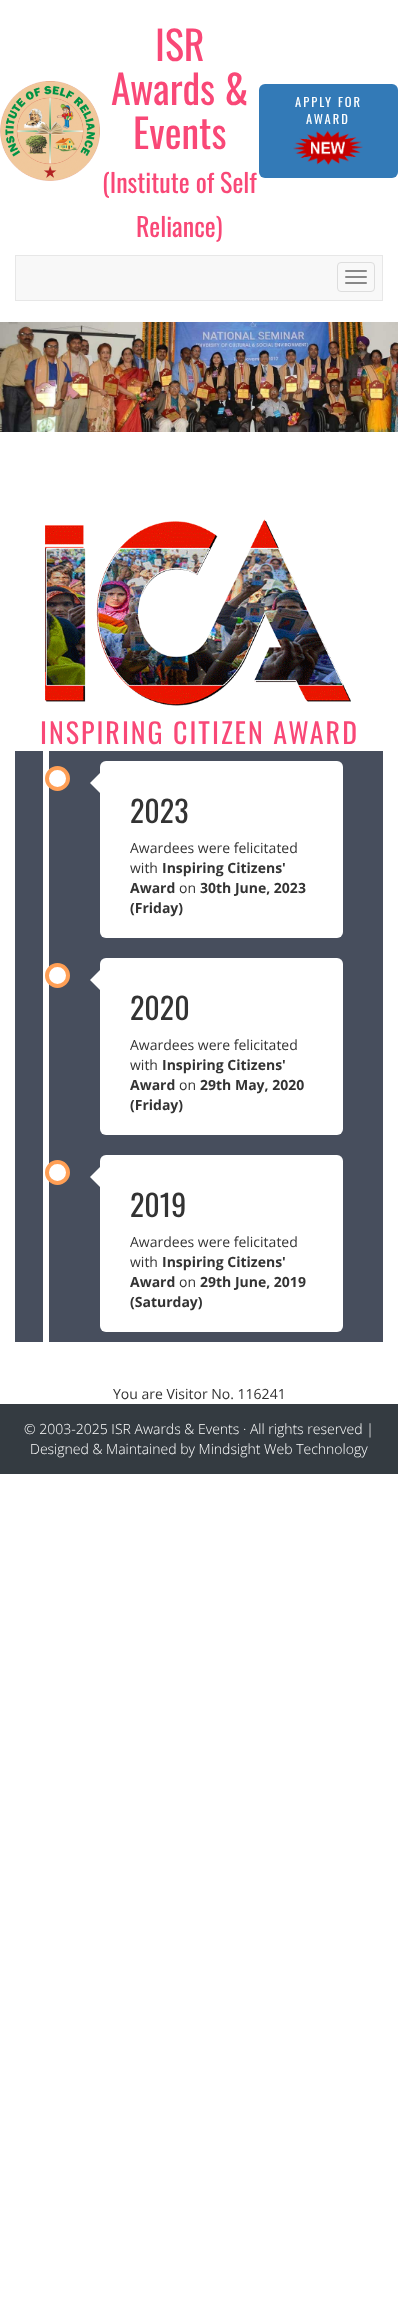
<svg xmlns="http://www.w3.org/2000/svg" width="398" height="2318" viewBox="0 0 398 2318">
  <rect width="100%" height="100%" fill="#ffffff"/>
  <image x="0" y="81" width="100" height="100" href="img1.png"/>
  <text x="155" y="61" font-family="Oswald" font-size="40" fill="#f94877">ISR</text>
  <text x="111" y="105" font-family="Oswald" font-size="40" fill="#f94877">Awards &amp;</text>
  <text x="133" y="149" font-family="Oswald" font-size="40" fill="#f94877">Events</text>
  <text x="102" y="193" font-family="Oswald" font-size="26" fill="#f94877">(Institute of Self</text>
  <text x="136" y="237" font-family="Oswald" font-size="26" fill="#f94877">Reliance)</text>
  <rect x="259" y="84" width="139" height="94" rx="6" fill="#337ab7"/>
  <text x="295" y="107" font-family="Oswald" font-size="12.5" letter-spacing="2" fill="#ffffff">APPLY FOR</text>
  <text x="306" y="124" font-family="Oswald" font-size="12.5" letter-spacing="2" fill="#ffffff">AWARD</text>
  <image x="293" y="130" width="70" height="35" href="img2.png"/>
  <rect x="15.5" y="255.5" width="367" height="45" fill="#f8f8f8" stroke="#e7e7e7"/>
  <rect x="337.5" y="262.5" width="37" height="29" rx="3.5" fill="none" stroke="#dddddd"/>
  <rect x="345" y="270" width="22" height="2" rx="1" fill="#888888"/>
  <rect x="345" y="276" width="22" height="2" rx="1" fill="#888888"/>
  <rect x="345" y="282" width="22" height="2" rx="1" fill="#888888"/>
  <image x="0" y="322" width="398" height="110" href="img3.png"/>
  <image x="45" y="519" width="306" height="187" href="img4.png"/>
  <text x="40" y="744" font-family="Oswald" font-size="28" letter-spacing="2" fill="#f94877">INSPIRING CITIZEN AWARD</text>
  <rect x="15" y="751" width="368" height="591" fill="#474e5d"/>
  <rect x="43" y="751" width="6" height="591" fill="#ffffff"/>
  <circle cx="57.5" cy="778.5" r="10.5" fill="#ffffff" stroke="#ff9f55" stroke-width="4"/>
  <path d="M100 773V793L90 783Z" fill="#ffffff"/>
  <rect x="100" y="761" width="243" height="177" rx="6" fill="#ffffff"/>
  <text x="130" y="823" font-family="Oswald" font-size="30" fill="#333333">2023</text>
  <text x="130" y="853" font-family="Open Sans" font-size="14" fill="#333333">Awardees were felicitated</text>
  <text x="130" y="873" font-family="Open Sans" font-size="14" fill="#333333">with</text>
  <text x="162" y="873" font-family="Open Sans" font-size="14" font-weight="bold" fill="#333333">Inspiring Citizens'</text>
  <text x="130" y="893" font-family="Open Sans" font-size="14" font-weight="bold" fill="#333333">Award</text>
  <text x="179" y="893" font-family="Open Sans" font-size="14" fill="#333333">on</text>
  <text x="200" y="893" font-family="Open Sans" font-size="14" font-weight="bold" fill="#333333">30th June, 2023</text>
  <text x="130" y="913" font-family="Open Sans" font-size="14" font-weight="bold" fill="#333333">(Friday)</text>
  <circle cx="57.5" cy="975.5" r="10.5" fill="#ffffff" stroke="#ff9f55" stroke-width="4"/>
  <path d="M100 970V990L90 980Z" fill="#ffffff"/>
  <rect x="100" y="958" width="243" height="177" rx="6" fill="#ffffff"/>
  <text x="130" y="1020" font-family="Oswald" font-size="30" fill="#333333">2020</text>
  <text x="130" y="1050" font-family="Open Sans" font-size="14" fill="#333333">Awardees were felicitated</text>
  <text x="130" y="1070" font-family="Open Sans" font-size="14" fill="#333333">with</text>
  <text x="162" y="1070" font-family="Open Sans" font-size="14" font-weight="bold" fill="#333333">Inspiring Citizens'</text>
  <text x="130" y="1090" font-family="Open Sans" font-size="14" font-weight="bold" fill="#333333">Award</text>
  <text x="179" y="1090" font-family="Open Sans" font-size="14" fill="#333333">on</text>
  <text x="200" y="1090" font-family="Open Sans" font-size="14" font-weight="bold" fill="#333333">29th May, 2020</text>
  <text x="130" y="1110" font-family="Open Sans" font-size="14" font-weight="bold" fill="#333333">(Friday)</text>
  <circle cx="57.5" cy="1172.5" r="10.5" fill="#ffffff" stroke="#ff9f55" stroke-width="4"/>
  <path d="M100 1167V1187L90 1177Z" fill="#ffffff"/>
  <rect x="100" y="1155" width="243" height="177" rx="6" fill="#ffffff"/>
  <text x="130" y="1217" font-family="Oswald" font-size="30" fill="#333333">2019</text>
  <text x="130" y="1247" font-family="Open Sans" font-size="14" fill="#333333">Awardees were felicitated</text>
  <text x="130" y="1267" font-family="Open Sans" font-size="14" fill="#333333">with</text>
  <text x="162" y="1267" font-family="Open Sans" font-size="14" font-weight="bold" fill="#333333">Inspiring Citizens'</text>
  <text x="130" y="1287" font-family="Open Sans" font-size="14" font-weight="bold" fill="#333333">Award</text>
  <text x="179" y="1287" font-family="Open Sans" font-size="14" fill="#333333">on</text>
  <text x="200" y="1287" font-family="Open Sans" font-size="14" font-weight="bold" fill="#333333">29th June, 2019</text>
  <text x="130" y="1307" font-family="Open Sans" font-size="14" font-weight="bold" fill="#333333">(Saturday)</text>
  <text x="113" y="1399" font-family="Open Sans" font-size="14" fill="#333333">You are Visitor No. 116241</text>
  <rect x="0" y="1404" width="398" height="70" fill="#343b41"/>
  <text x="24" y="1434" font-family="Open Sans" font-size="14" font-weight="300" fill="#ffffff">© 2003-2025 ISR Awards &amp; Events · All rights reserved |</text>
  <text x="30" y="1454" font-family="Open Sans" font-size="14" font-weight="300" fill="#ffffff">Designed &amp; Maintained by Mindsight Web Technology</text>
</svg>
